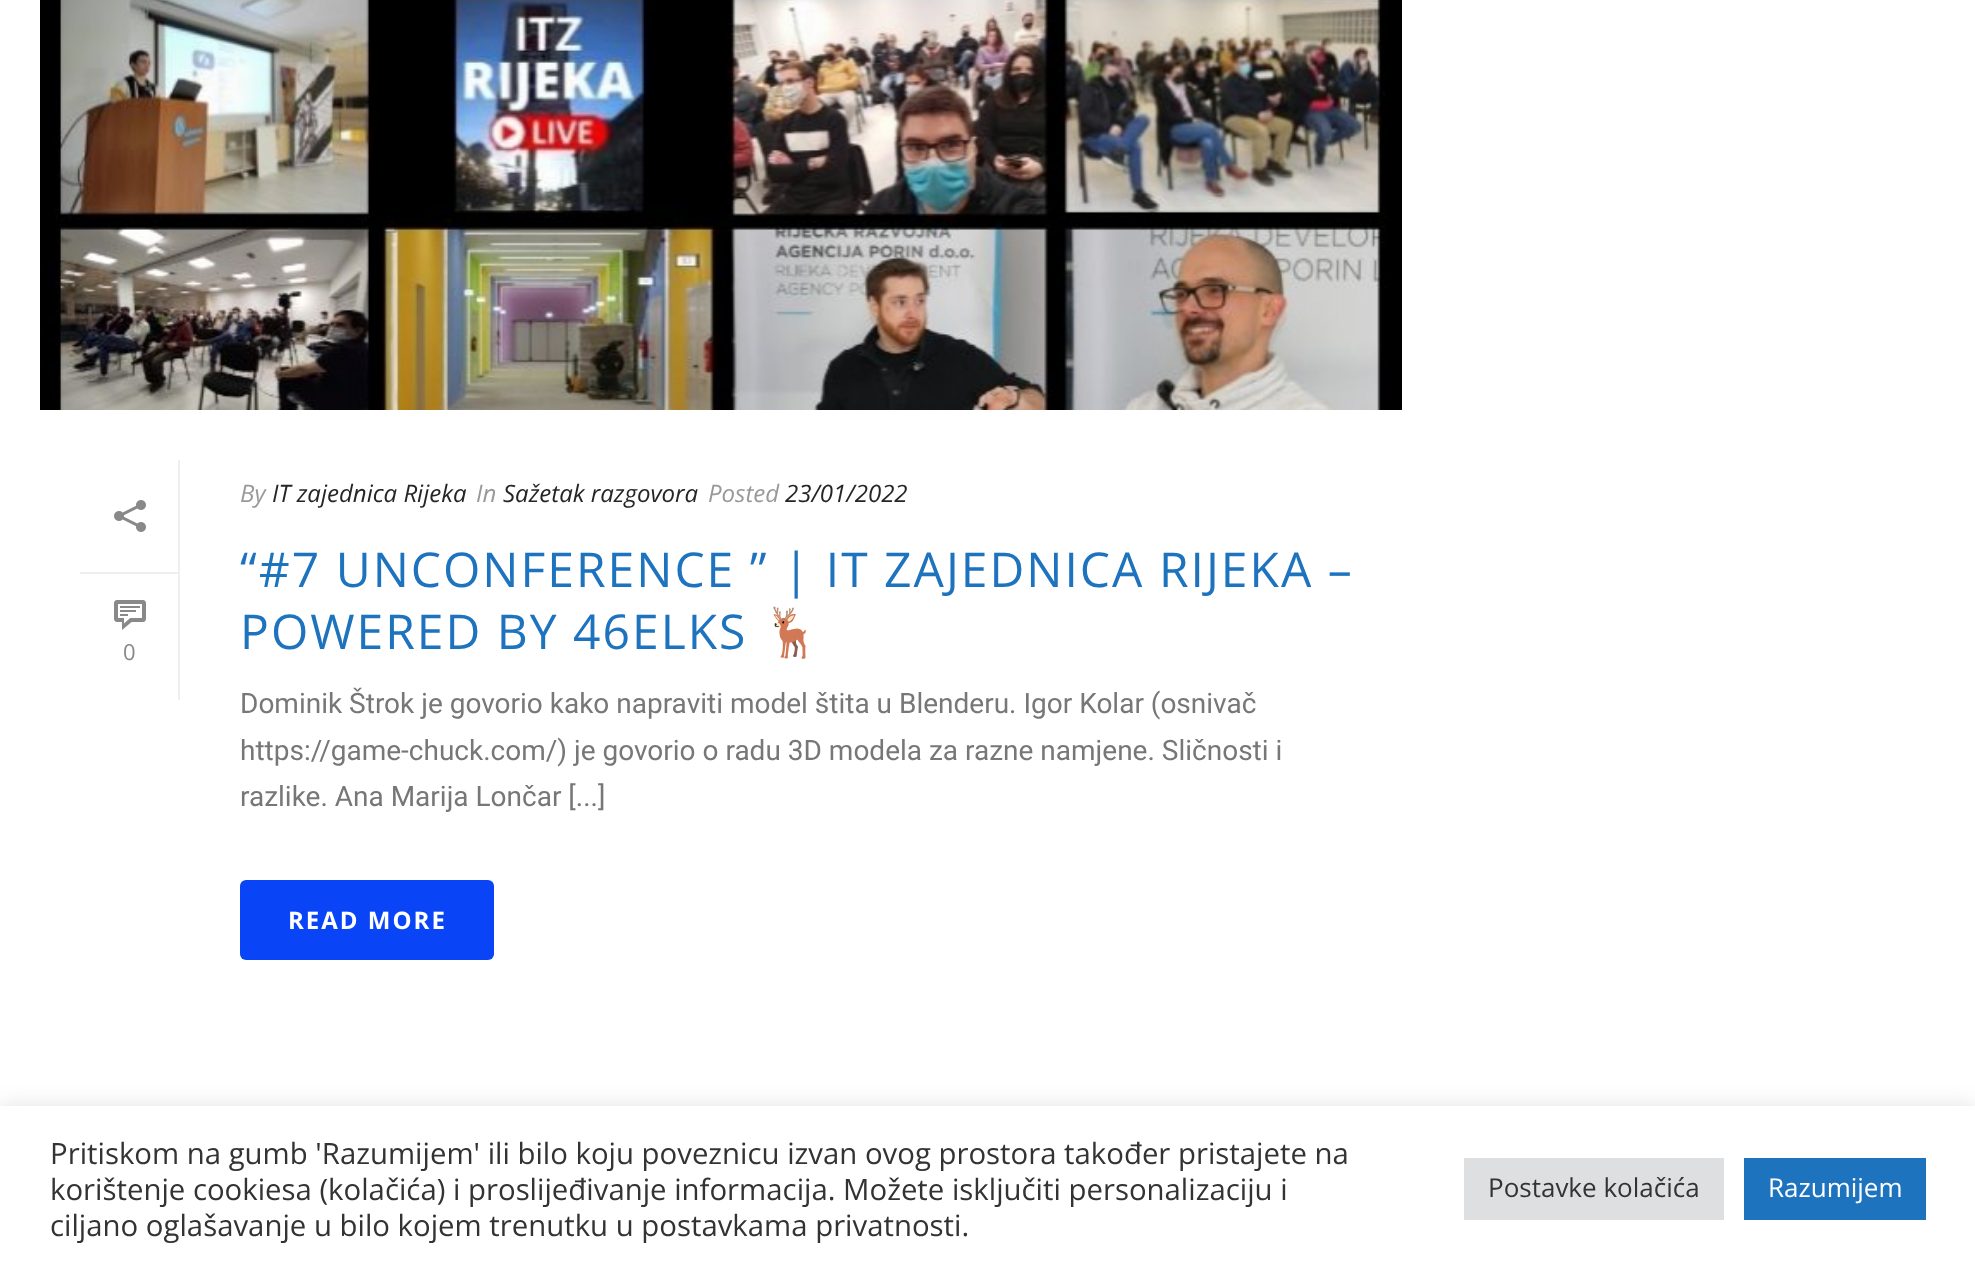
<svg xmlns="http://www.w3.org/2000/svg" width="1975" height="1269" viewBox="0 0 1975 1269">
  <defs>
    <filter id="blur1" x="-50%" y="-200%" width="200%" height="500%"><feGaussianBlur stdDeviation="10"/></filter>
  </defs>
  <rect width="100%" height="100%" fill="#ffffff"/>
  <image x="40" y="0" width="1362" height="410" href="img1.png"/>
  <rect x="178" y="460" width="2" height="240" fill="#efefef"/>
  <rect x="80" y="572" width="98" height="2" fill="#efefef"/>
  <image x="114" y="500" width="32" height="32" href="img2.png"/>
  <image x="114" y="600" width="32" height="30" href="img3.png"/>
  <text x="123" y="660" font-family="Open Sans" font-size="22" fill="#898989">0</text>
  <text x="240" y="502" font-family="Open Sans" font-size="24" font-style="italic" fill="#999999">By</text>
  <text x="272" y="502" font-family="Open Sans" font-size="24" font-style="italic" fill="#252525">IT zajednica Rijeka</text>
  <text x="476" y="502" font-family="Open Sans" font-size="24" font-style="italic" fill="#999999">In</text>
  <text x="503" y="502" font-family="Open Sans" font-size="24" font-style="italic" fill="#252525">Sažetak razgovora</text>
  <text x="708" y="502" font-family="Open Sans" font-size="24" font-style="italic" fill="#999999">Posted</text>
  <text x="785" y="502" font-family="Open Sans" font-size="24" font-style="italic" fill="#252525">23/01/2022</text>
  <text x="240" y="587" font-family="Open Sans" font-size="48" letter-spacing="2" fill="#1e73be">“#7 UNCONFERENCE ” | IT ZAJEDNICA RIJEKA –</text>
  <text x="240" y="649" font-family="Open Sans" font-size="48" letter-spacing="2" fill="#1e73be">POWERED BY 46ELKS</text>
  <text x="762" y="649" font-family="Noto Color Emoji" font-size="48" letter-spacing="2" fill="#1e73be">🦌</text>
  <text x="240" y="713" font-family="Roboto" font-size="28" fill="#777777">Dominik Štrok je govorio kako napraviti model štita u Blenderu. Igor Kolar (osnivač</text>
  <text x="240" y="760" font-family="Roboto" font-size="28" fill="#777777">https://game-chuck.com/) je govorio o radu 3D modela za razne namjene. Sličnosti i</text>
  <text x="240" y="806" font-family="Roboto" font-size="28" fill="#777777">razlike. Ana Marija Lončar [...]</text>
  <rect x="240" y="880" width="254" height="80" rx="6" fill="#0945f7"/>
  <text x="288" y="929" font-family="Open Sans" font-size="24" font-weight="bold" letter-spacing="2" fill="#ffffff">READ MORE</text>
  <rect x="0" y="1104" width="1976" height="164" fill="#acabab" fill-opacity="0.3" filter="url(#blur1)"/>
  <rect x="0" y="1106" width="1975" height="163" fill="#ffffff"/>
  <text x="50" y="1164" font-family="Open Sans" font-size="29.35" fill="#333333">Pritiskom na gumb 'Razumijem' ili bilo koju poveznicu izvan ovog prostora također pristajete na</text>
  <text x="50" y="1200" font-family="Open Sans" font-size="29.35" fill="#333333">korištenje cookiesa (kolačića) i proslijeđivanje informacija. Možete isključiti personalizaciju i</text>
  <text x="50" y="1236" font-family="Open Sans" font-size="29.35" fill="#333333">ciljano oglašavanje u bilo kojem trenutku u postavkama privatnosti.</text>
  <rect x="1464" y="1158" width="260" height="62" fill="#dedfe0"/>
  <text x="1488" y="1197" font-family="Open Sans" font-size="26" fill="#333333">Postavke kolačića</text>
  <rect x="1744" y="1158" width="182" height="62" fill="#1e73be"/>
  <text x="1768" y="1197" font-family="Open Sans" font-size="26" fill="#ffffff">Razumijem</text>
</svg>
